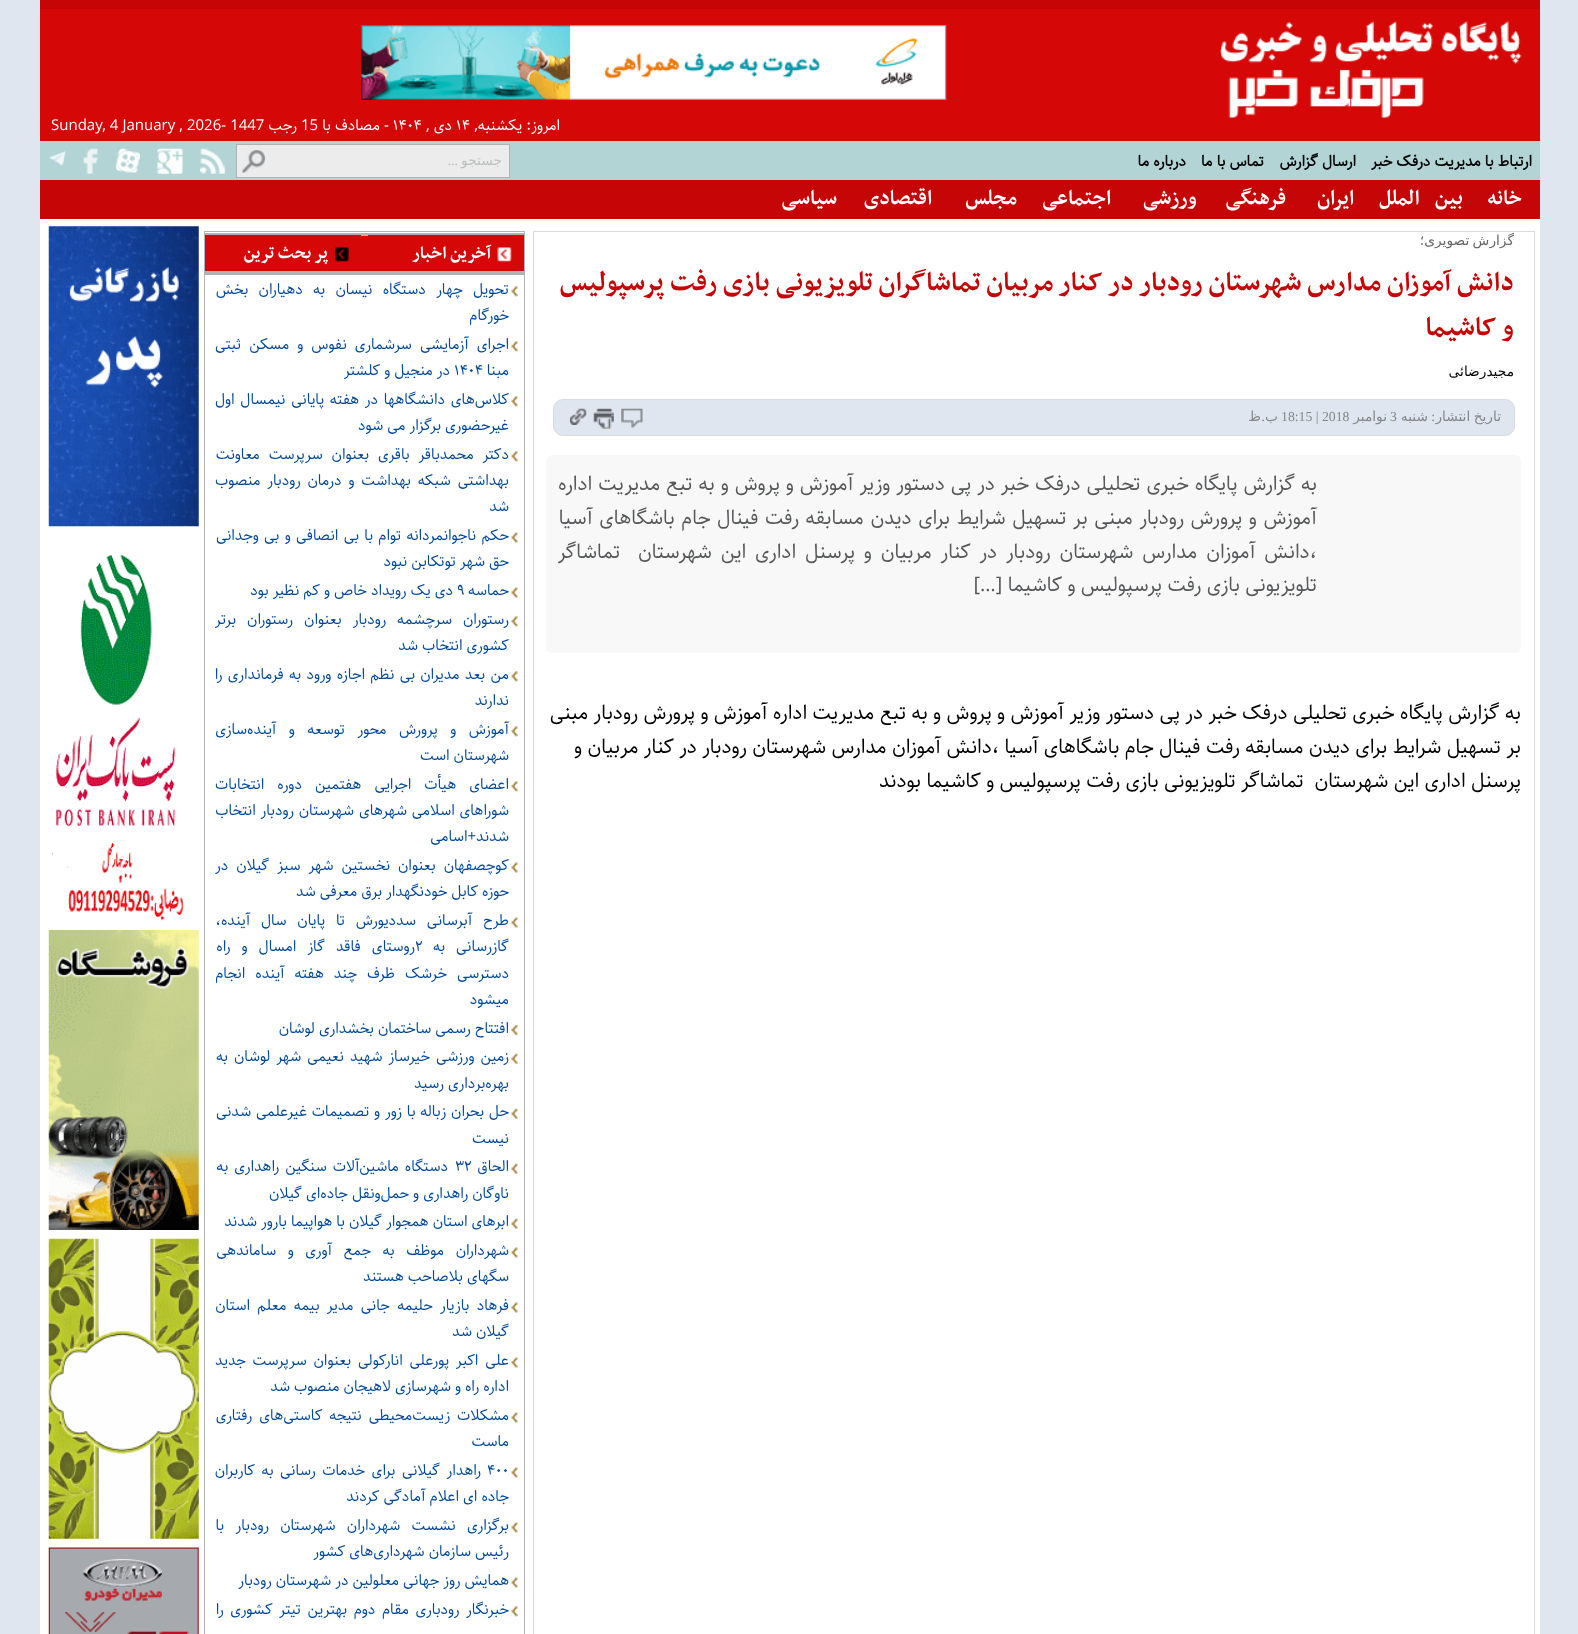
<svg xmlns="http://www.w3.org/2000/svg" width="1578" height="1634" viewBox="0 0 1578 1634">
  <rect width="100%" height="100%" fill="#dfe6ef"/>
  <rect x="40" y="9" width="1500" height="132" fill="#d60707"/>
  <rect x="40" y="0" width="1500" height="9" fill="#c60606"/>
  <image x="1220" y="21" width="302" height="97" href="img1.png"/>
  <image x="361" y="25" width="586" height="75" href="img2.png"/>
  <text x="560" y="130" font-family="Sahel" font-size="15" direction="rtl" fill="#ffffff">امروز:</text>
  <text x="522" y="130" font-family="Sahel" font-size="15" direction="rtl" fill="#ffffff">یکشنبه,</text>
  <text x="456" y="130" font-family="Sahel" font-size="15" fill="#ffffff">۱۴</text>
  <text x="452" y="130" font-family="Sahel" font-size="15" direction="rtl" fill="#ffffff">دی ,</text>
  <text x="384" y="130" font-family="Sahel" font-size="15" fill="#ffffff">- ۱۴۰۴</text>
  <text x="380" y="130" font-family="Sahel" font-size="15" direction="rtl" fill="#ffffff">مصادف با</text>
  <text x="301" y="130" font-family="Sahel" font-size="15" fill="#ffffff">15</text>
  <text x="297" y="130" font-family="Sahel" font-size="15" direction="rtl" fill="#ffffff">رجب</text>
  <text x="51" y="130" font-family="Sahel" font-size="15" fill="#ffffff">Sunday, 4 January , 2026- 1447</text>
  <rect x="40" y="141" width="1500" height="39" fill="#b3d4d4"/>
  <text x="1532" y="166" font-family="Sahel" font-size="15" font-weight="bold" direction="rtl" fill="#000000">ارتباط با مدیریت درفک خبر</text>
  <text x="1356" y="166" font-family="Sahel" font-size="15" font-weight="bold" direction="rtl" fill="#000000">ارسال گزارش</text>
  <text x="1264" y="166" font-family="Sahel" font-size="15" font-weight="bold" direction="rtl" fill="#000000">تماس با ما</text>
  <text x="1186" y="166" font-family="Sahel" font-size="15" font-weight="bold" direction="rtl" fill="#000000">درباره ما</text>
  <rect x="236.5" y="144.5" width="273" height="33" fill="#ececed" stroke="#b1b2b4"/>
  <text x="502" y="165" font-family="DejaVu Sans" font-size="13.75" direction="rtl" fill="#bdbfbf">جستجو</text>
  <text x="458" y="165" font-family="Liberation Serif" font-size="13.75" direction="rtl" fill="#bdbfbf">...</text>
  <image x="242" y="150" width="23" height="23" href="img3.png"/>
  <image x="200" y="148" width="25" height="26" href="img4.png"/>
  <image x="157" y="148" width="26" height="26" href="img5.png"/>
  <image x="116" y="148" width="24" height="25" href="img6.png"/>
  <image x="83" y="148" width="15" height="26" href="img7.png"/>
  <image x="49" y="151" width="17" height="15" href="img8.png"/>
  <rect x="40" y="219" width="1500" height="1415" fill="#ffffff"/>
  <rect x="40" y="180" width="1500" height="39" fill="#c60606"/>
  <text x="1522" y="204" font-family="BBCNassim" font-size="24" font-weight="bold" letter-spacing="-1.25" direction="rtl" fill="#ffffff">خانه</text>
  <text x="1463" y="204" word-spacing="11" font-family="BBCNassim" font-size="24" font-weight="bold" letter-spacing="-1.25" direction="rtl" fill="#ffffff">بین الملل</text>
  <text x="1354" y="204" font-family="BBCNassim" font-size="24" font-weight="bold" letter-spacing="-1.25" direction="rtl" fill="#ffffff">ایران</text>
  <text x="1286" y="204" font-family="BBCNassim" font-size="24" font-weight="bold" letter-spacing="-1.25" direction="rtl" fill="#ffffff">فرهنگی</text>
  <text x="1197" y="204" font-family="BBCNassim" font-size="24" font-weight="bold" letter-spacing="-1.25" direction="rtl" fill="#ffffff">ورزشی</text>
  <text x="1111" y="204" font-family="BBCNassim" font-size="24" font-weight="bold" letter-spacing="-1.25" direction="rtl" fill="#ffffff">اجتماعی</text>
  <text x="1017" y="204" font-family="BBCNassim" font-size="24" font-weight="bold" letter-spacing="-1.25" direction="rtl" fill="#ffffff">مجلس</text>
  <text x="932" y="204" font-family="BBCNassim" font-size="24" font-weight="bold" letter-spacing="-1.25" direction="rtl" fill="#ffffff">اقتصادی</text>
  <text x="837" y="204" font-family="BBCNassim" font-size="24" font-weight="bold" letter-spacing="-1.25" direction="rtl" fill="#ffffff">سیاسی</text>
  <rect x="533.5" y="231.5" width="1001" height="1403" fill="none" stroke="#d9dadb"/>
  <text x="1514" y="245" word-spacing="-1" font-family="DejaVu Sans" font-size="13.75" direction="rtl" fill="#666666">گزارش تصویری؛</text>
  <text x="1514" y="290" font-family="BBCNassim" font-size="31.25" font-weight="bold" direction="rtl" fill="#c60606">دانش آموزان مدارس شهرستان رودبار در کنار مربیان تماشاگران تلویزیونی بازی رفت پرسپولیس</text>
  <text x="1514" y="335" font-family="BBCNassim" font-size="31.25" font-weight="bold" direction="rtl" fill="#c60606">و کاشیما</text>
  <text x="1514" y="376" font-family="DejaVu Sans" font-size="13.75" direction="rtl" fill="#000000">مجیدرضائی</text>
  <rect x="553.5" y="399.5" width="961" height="36" rx="9.5" fill="#dfe6ef" stroke="#d9dadb"/>
  <text x="1501" y="421" word-spacing="-1" font-family="DejaVu Sans" font-size="13.75" direction="rtl" fill="#868789">تاریخ انتشار</text>
  <text x="1435" y="421" font-family="Liberation Serif" font-size="13.75" direction="rtl" fill="#868789">:</text>
  <text x="1428" y="421" font-family="DejaVu Sans" font-size="13.75" direction="rtl" fill="#868789">شنبه</text>
  <text x="1390" y="421" font-family="Liberation Serif" font-size="13.75" fill="#868789">3</text>
  <text x="1387" y="421" font-family="DejaVu Sans" font-size="13.75" direction="rtl" fill="#868789">نوامبر</text>
  <text x="1281" y="421" font-family="Liberation Serif" font-size="13.75" fill="#868789">18:15 | 2018</text>
  <text x="1278" y="421" font-family="DejaVu Sans" font-size="13.75" direction="rtl" fill="#868789">ب</text>
  <text x="1265" y="421" font-family="Liberation Serif" font-size="13.75" direction="rtl" fill="#868789">.</text>
  <text x="1261" y="421" font-family="DejaVu Sans" font-size="13.75" direction="rtl" fill="#868789">ظ</text>
  <image x="621" y="408" width="22" height="20" href="img9.png"/>
  <image x="593" y="408" width="21" height="21" href="img10.png"/>
  <image x="570" y="408" width="17" height="17" href="img11.png"/>
  <rect x="546" y="455" width="975" height="198" rx="6" fill="#f8f8f9"/>
  <text x="1317" y="490" word-spacing="0.6" font-family="Sahel" font-size="20" direction="rtl" fill="#57585a">به گزارش پایگاه خبری تحلیلی درفک خبر در پی دستور وزیر آموزش و پروش و به تبع مدیریت اداره</text>
  <text x="1317" y="524" word-spacing="1.25" font-family="Sahel" font-size="20" direction="rtl" fill="#57585a">آموزش و پرورش رودبار مبنی بر تسهیل شرایط برای دیدن مسابقه رفت فینال جام باشگاهای آسیا</text>
  <text x="1317" y="558" word-spacing="3.5" font-family="Sahel" font-size="20" direction="rtl" fill="#57585a" xml:space="preserve">،دانش آموزان مدارس شهرستان رودبار در کنار مربیان و پرسنل اداری این شهرستان  تماشاگر</text>
  <text x="1317" y="591" font-family="Sahel" font-size="20" direction="rtl" fill="#57585a">تلویزیونی بازی رفت پرسپولیس و کاشیما […]</text>
  <text x="1521" y="719" font-family="Sahel" font-size="20" direction="rtl" fill="#000000">به گزارش پایگاه خبری تحلیلی درفک خبر در پی دستور وزیر آموزش و پروش و به تبع مدیریت اداره آموزش و پرورش رودبار مبنی</text>
  <text x="1521" y="753" font-family="Sahel" font-size="20" direction="rtl" fill="#000000">بر تسهیل شرایط برای دیدن مسابقه رفت فینال جام باشگاهای آسیا ،دانش آموزان مدارس شهرستان رودبار در کنار مربیان و</text>
  <text x="1521" y="787" font-family="Sahel" font-size="20" direction="rtl" fill="#000000" xml:space="preserve">پرسنل اداری این شهرستان  تماشاگر تلویزیونی بازی رفت پرسپولیس و کاشیما بودند</text>
  <rect x="204.5" y="231.5" width="320" height="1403" fill="none" stroke="#b1b2b4"/>
  <rect x="205" y="236" width="319" height="35" fill="#d60707"/>
  <rect x="205" y="233" width="319" height="3" fill="#b1b2b4"/>
  <rect x="205" y="271" width="319" height="4" fill="#b1b2b4"/>
  <rect x="368" y="235" width="156" height="1" fill="#d60707"/>
  <image x="497" y="247" width="15" height="15" href="img12.png"/>
  <text x="491" y="258" font-family="BBCNassim" font-size="20" font-weight="bold" direction="rtl" fill="#ffffff">آخرين اخبار</text>
  <rect x="205" y="235" width="156" height="1" fill="#d60707"/>
  <image x="335" y="247" width="14" height="15" href="img13.png"/>
  <text x="328" y="258" font-family="BBCNassim" font-size="20" font-weight="bold" direction="rtl" fill="#ffffff">پر بحث ترين</text>
  <image x="511" y="286" width="7" height="11" href="img14.png"/>
  <text x="509" y="294" word-spacing="6.25" font-family="Sahel" font-size="15" direction="rtl" fill="#004798">تحویل چهار دستگاه نیسان به دهیاران بخش</text>
  <text x="509" y="320" font-family="Sahel" font-size="15" direction="rtl" fill="#004798">خورگام</text>
  <image x="511" y="341" width="7" height="11" href="img14.png"/>
  <text x="509" y="349" word-spacing="4" font-family="Sahel" font-size="15" direction="rtl" fill="#004798">اجرای آزمایشی سرشماری نفوس و مسکن ثبتی</text>
  <text x="509" y="375" font-family="Sahel" font-size="15" direction="rtl" fill="#004798">مبنا</text>
  <text x="454" y="375" font-family="Sahel" font-size="15" fill="#004798">۱۴۰۴</text>
  <text x="450" y="375" font-family="Sahel" font-size="15" direction="rtl" fill="#004798">در منجیل و کلشتر</text>
  <image x="511" y="396" width="7" height="11" href="img14.png"/>
  <text x="509" y="404" word-spacing="1.75" font-family="Sahel" font-size="15" direction="rtl" fill="#004798">کلاس‌های دانشگاهها در هفته پایانی نیمسال اول</text>
  <text x="509" y="430" font-family="Sahel" font-size="15" direction="rtl" fill="#004798">غیرحضوری برگزار می شود</text>
  <image x="511" y="451" width="7" height="11" href="img14.png"/>
  <text x="509" y="459" word-spacing="4.75" font-family="Sahel" font-size="15" direction="rtl" fill="#004798">دکتر محمدباقر باقری بعنوان سرپرست معاونت</text>
  <text x="509" y="485" word-spacing="2.75" font-family="Sahel" font-size="15" direction="rtl" fill="#004798">بهداشتی شبکه بهداشت و درمان رودبار منصوب</text>
  <text x="509" y="511" font-family="Sahel" font-size="15" direction="rtl" fill="#004798">شد</text>
  <image x="511" y="532" width="7" height="11" href="img15.png"/>
  <text x="509" y="540" word-spacing="1.25" font-family="Sahel" font-size="15" direction="rtl" fill="#004798">حکم ناجوانمردانه توام با بی انصافی و بی وجدانی</text>
  <text x="509" y="566" font-family="Sahel" font-size="15" direction="rtl" fill="#004798">حق شهر توتکابن نبود</text>
  <image x="511" y="587" width="7" height="11" href="img16.png"/>
  <text x="509" y="595" font-family="Sahel" font-size="15" direction="rtl" fill="#004798">حماسه</text>
  <text x="457" y="595" font-family="Sahel" font-size="15" fill="#004798">۹</text>
  <text x="453" y="595" font-family="Sahel" font-size="15" direction="rtl" fill="#004798">دی یک رویداد خاص و کم نظیر بود</text>
  <image x="511" y="616" width="7" height="11" href="img14.png"/>
  <text x="509" y="624" word-spacing="7" font-family="Sahel" font-size="15" direction="rtl" fill="#004798">رستوران سرچشمه رودبار بعنوان رستوران برتر</text>
  <text x="509" y="650" font-family="Sahel" font-size="15" direction="rtl" fill="#004798">کشوری انتخاب شد</text>
  <image x="511" y="671" width="7" height="11" href="img14.png"/>
  <text x="509" y="679" word-spacing="1.25" font-family="Sahel" font-size="15" direction="rtl" fill="#004798">من بعد مدیران بی نظم اجازه ورود به فرمانداری را</text>
  <text x="509" y="705" font-family="Sahel" font-size="15" direction="rtl" fill="#004798">ندارند</text>
  <image x="511" y="726" width="7" height="11" href="img14.png"/>
  <text x="509" y="734" word-spacing="8.5" font-family="Sahel" font-size="15" direction="rtl" fill="#004798">آموزش و پرورش محور توسعه و آینده‌سازی</text>
  <text x="509" y="760" font-family="Sahel" font-size="15" direction="rtl" fill="#004798">شهرستان است</text>
  <image x="511" y="781" width="7" height="11" href="img14.png"/>
  <text x="509" y="789" word-spacing="9" font-family="Sahel" font-size="15" direction="rtl" fill="#004798">اعضای هیأت اجرایی هفتمین دوره انتخابات</text>
  <text x="509" y="815" word-spacing="0.75" font-family="Sahel" font-size="15" direction="rtl" fill="#004798">شوراهای اسلامی شهرهای شهرستان رودبار انتخاب</text>
  <text x="509" y="841" font-family="Sahel" font-size="15" direction="rtl" fill="#004798">شدند+اسامی</text>
  <image x="511" y="862" width="7" height="11" href="img15.png"/>
  <text x="509" y="870" word-spacing="4" font-family="Sahel" font-size="15" direction="rtl" fill="#004798">کوچصفهان بعنوان نخستین شهر سبز گیلان در</text>
  <text x="509" y="896" font-family="Sahel" font-size="15" direction="rtl" fill="#004798">حوزه کابل خودنگهدار برق معرفی شد</text>
  <image x="511" y="917" width="7" height="11" href="img15.png"/>
  <text x="509" y="925" word-spacing="6.75" font-family="Sahel" font-size="15" direction="rtl" fill="#004798">طرح آبرسانی سددیورش تا پایان سال آینده،</text>
  <text x="509" y="951" word-spacing="7" font-family="Sahel" font-size="15" direction="rtl" fill="#004798">گازرسانی به</text>
  <text x="415" y="951" font-family="Sahel" font-size="15" fill="#004798">۲</text>
  <text x="415" y="951" word-spacing="7" font-family="Sahel" font-size="15" direction="rtl" fill="#004798">روستای فاقد گاز امسال و راه</text>
  <text x="509" y="978" word-spacing="6" font-family="Sahel" font-size="15" direction="rtl" fill="#004798">دسترسی خرشک ظرف چند هفته آینده انجام</text>
  <text x="509" y="1004" font-family="Sahel" font-size="15" direction="rtl" fill="#004798">میشود</text>
  <image x="511" y="1024" width="7" height="12" href="img17.png"/>
  <text x="509" y="1033" font-family="Sahel" font-size="15" direction="rtl" fill="#004798">افتتاح رسمی ساختمان بخشداری لوشان</text>
  <image x="511" y="1053" width="7" height="11" href="img18.png"/>
  <text x="509" y="1061" word-spacing="2" font-family="Sahel" font-size="15" direction="rtl" fill="#004798">زمین ورزشی خیرساز شهید نعیمی شهر لوشان</text>
  <text x="228" y="1061" font-family="Sahel" font-size="15" direction="rtl" fill="#004798">به</text>
  <text x="509" y="1088" font-family="Sahel" font-size="15" direction="rtl" fill="#004798">بهره‌برداری رسید</text>
  <image x="511" y="1108" width="7" height="11" href="img18.png"/>
  <text x="509" y="1116" word-spacing="0.75" font-family="Sahel" font-size="15" direction="rtl" fill="#004798">حل بحران زباله با زور و تصمیمات غیرعلمی شدنی</text>
  <text x="509" y="1143" font-family="Sahel" font-size="15" direction="rtl" fill="#004798">نیست</text>
  <image x="511" y="1163" width="7" height="11" href="img18.png"/>
  <text x="509" y="1171" font-family="Sahel" font-size="15" direction="rtl" fill="#004798">الحاق</text>
  <text x="455" y="1171" font-family="Sahel" font-size="15" fill="#004798">۳۲</text>
  <text x="448" y="1171" word-spacing="2" font-family="Sahel" font-size="15" direction="rtl" fill="#004798">دستگاه ماشین‌آلات سنگین راهداری به</text>
  <text x="509" y="1198" font-family="Sahel" font-size="15" direction="rtl" fill="#004798">ناوگان راهداری و حمل‌ونقل جاده‌ای گیلان</text>
  <image x="511" y="1218" width="7" height="11" href="img18.png"/>
  <text x="509" y="1226" font-family="Sahel" font-size="15" direction="rtl" fill="#004798">ابرهای استان همجوار گیلان با هواپیما بارور شدند</text>
  <image x="511" y="1247" width="7" height="11" href="img15.png"/>
  <text x="509" y="1255" word-spacing="7.5" font-family="Sahel" font-size="15" direction="rtl" fill="#004798">شهرداران موظف به جمع آوری و ساماندهی</text>
  <text x="509" y="1281" font-family="Sahel" font-size="15" direction="rtl" fill="#004798">سگهای بلاصاحب هستند</text>
  <image x="511" y="1302" width="7" height="11" href="img15.png"/>
  <text x="509" y="1310" word-spacing="3.25" font-family="Sahel" font-size="15" direction="rtl" fill="#004798">فرهاد بازیار حلیمه جانی مدیر بیمه معلم استان</text>
  <text x="509" y="1336" font-family="Sahel" font-size="15" direction="rtl" fill="#004798">گیلان شد</text>
  <image x="511" y="1357" width="7" height="11" href="img15.png"/>
  <text x="509" y="1365" word-spacing="2.75" font-family="Sahel" font-size="15" direction="rtl" fill="#004798">علی اکبر پورعلی انارکولی بعنوان سرپرست جدید</text>
  <text x="509" y="1391" font-family="Sahel" font-size="15" direction="rtl" fill="#004798">اداره راه و شهرسازی لاهیجان منصوب شد</text>
  <image x="511" y="1412" width="7" height="11" href="img15.png"/>
  <text x="509" y="1420" word-spacing="3" font-family="Sahel" font-size="15" direction="rtl" fill="#004798">مشکلات زیست‌محیطی نتیجه کاستی‌های رفتاری</text>
  <text x="509" y="1446" font-family="Sahel" font-size="15" direction="rtl" fill="#004798">ماست</text>
  <image x="511" y="1467" width="7" height="11" href="img15.png"/>
  <text x="487" y="1475" font-family="Sahel" font-size="15" fill="#004798">۴۰۰</text>
  <text x="481" y="1475" word-spacing="2.5" font-family="Sahel" font-size="15" direction="rtl" fill="#004798">راهدار گیلانی برای خدمات رسانی به کاربران</text>
  <text x="509" y="1501" font-family="Sahel" font-size="15" direction="rtl" fill="#004798">جاده ای اعلام آمادگی کردند</text>
  <image x="511" y="1522" width="7" height="11" href="img15.png"/>
  <text x="509" y="1530" word-spacing="7.25" font-family="Sahel" font-size="15" direction="rtl" fill="#004798">برگزاری نشست شهرداران شهرستان رودبار با</text>
  <text x="509" y="1556" font-family="Sahel" font-size="15" direction="rtl" fill="#004798">رئیس سازمان شهرداری‌های کشور</text>
  <image x="511" y="1577" width="7" height="11" href="img15.png"/>
  <text x="509" y="1585" font-family="Sahel" font-size="15" direction="rtl" fill="#004798">همایش روز جهانی معلولین در شهرستان رودبار</text>
  <image x="511" y="1606" width="7" height="11" href="img14.png"/>
  <text x="509" y="1614" word-spacing="2.5" font-family="Sahel" font-size="15" direction="rtl" fill="#004798">خبرنگار رودباری مقام دوم بهترین تیتر کشوری را</text>
  <image x="48" y="226" width="151" height="301" href="img19.png"/>
  <image x="52" y="554" width="132" height="367" href="img20.png"/>
  <image x="48" y="930" width="151" height="300" href="img21.png"/>
  <image x="48" y="1238" width="151" height="301" href="img22.png"/>
  <image x="48" y="1547" width="151" height="87" href="img23.png"/>
</svg>
